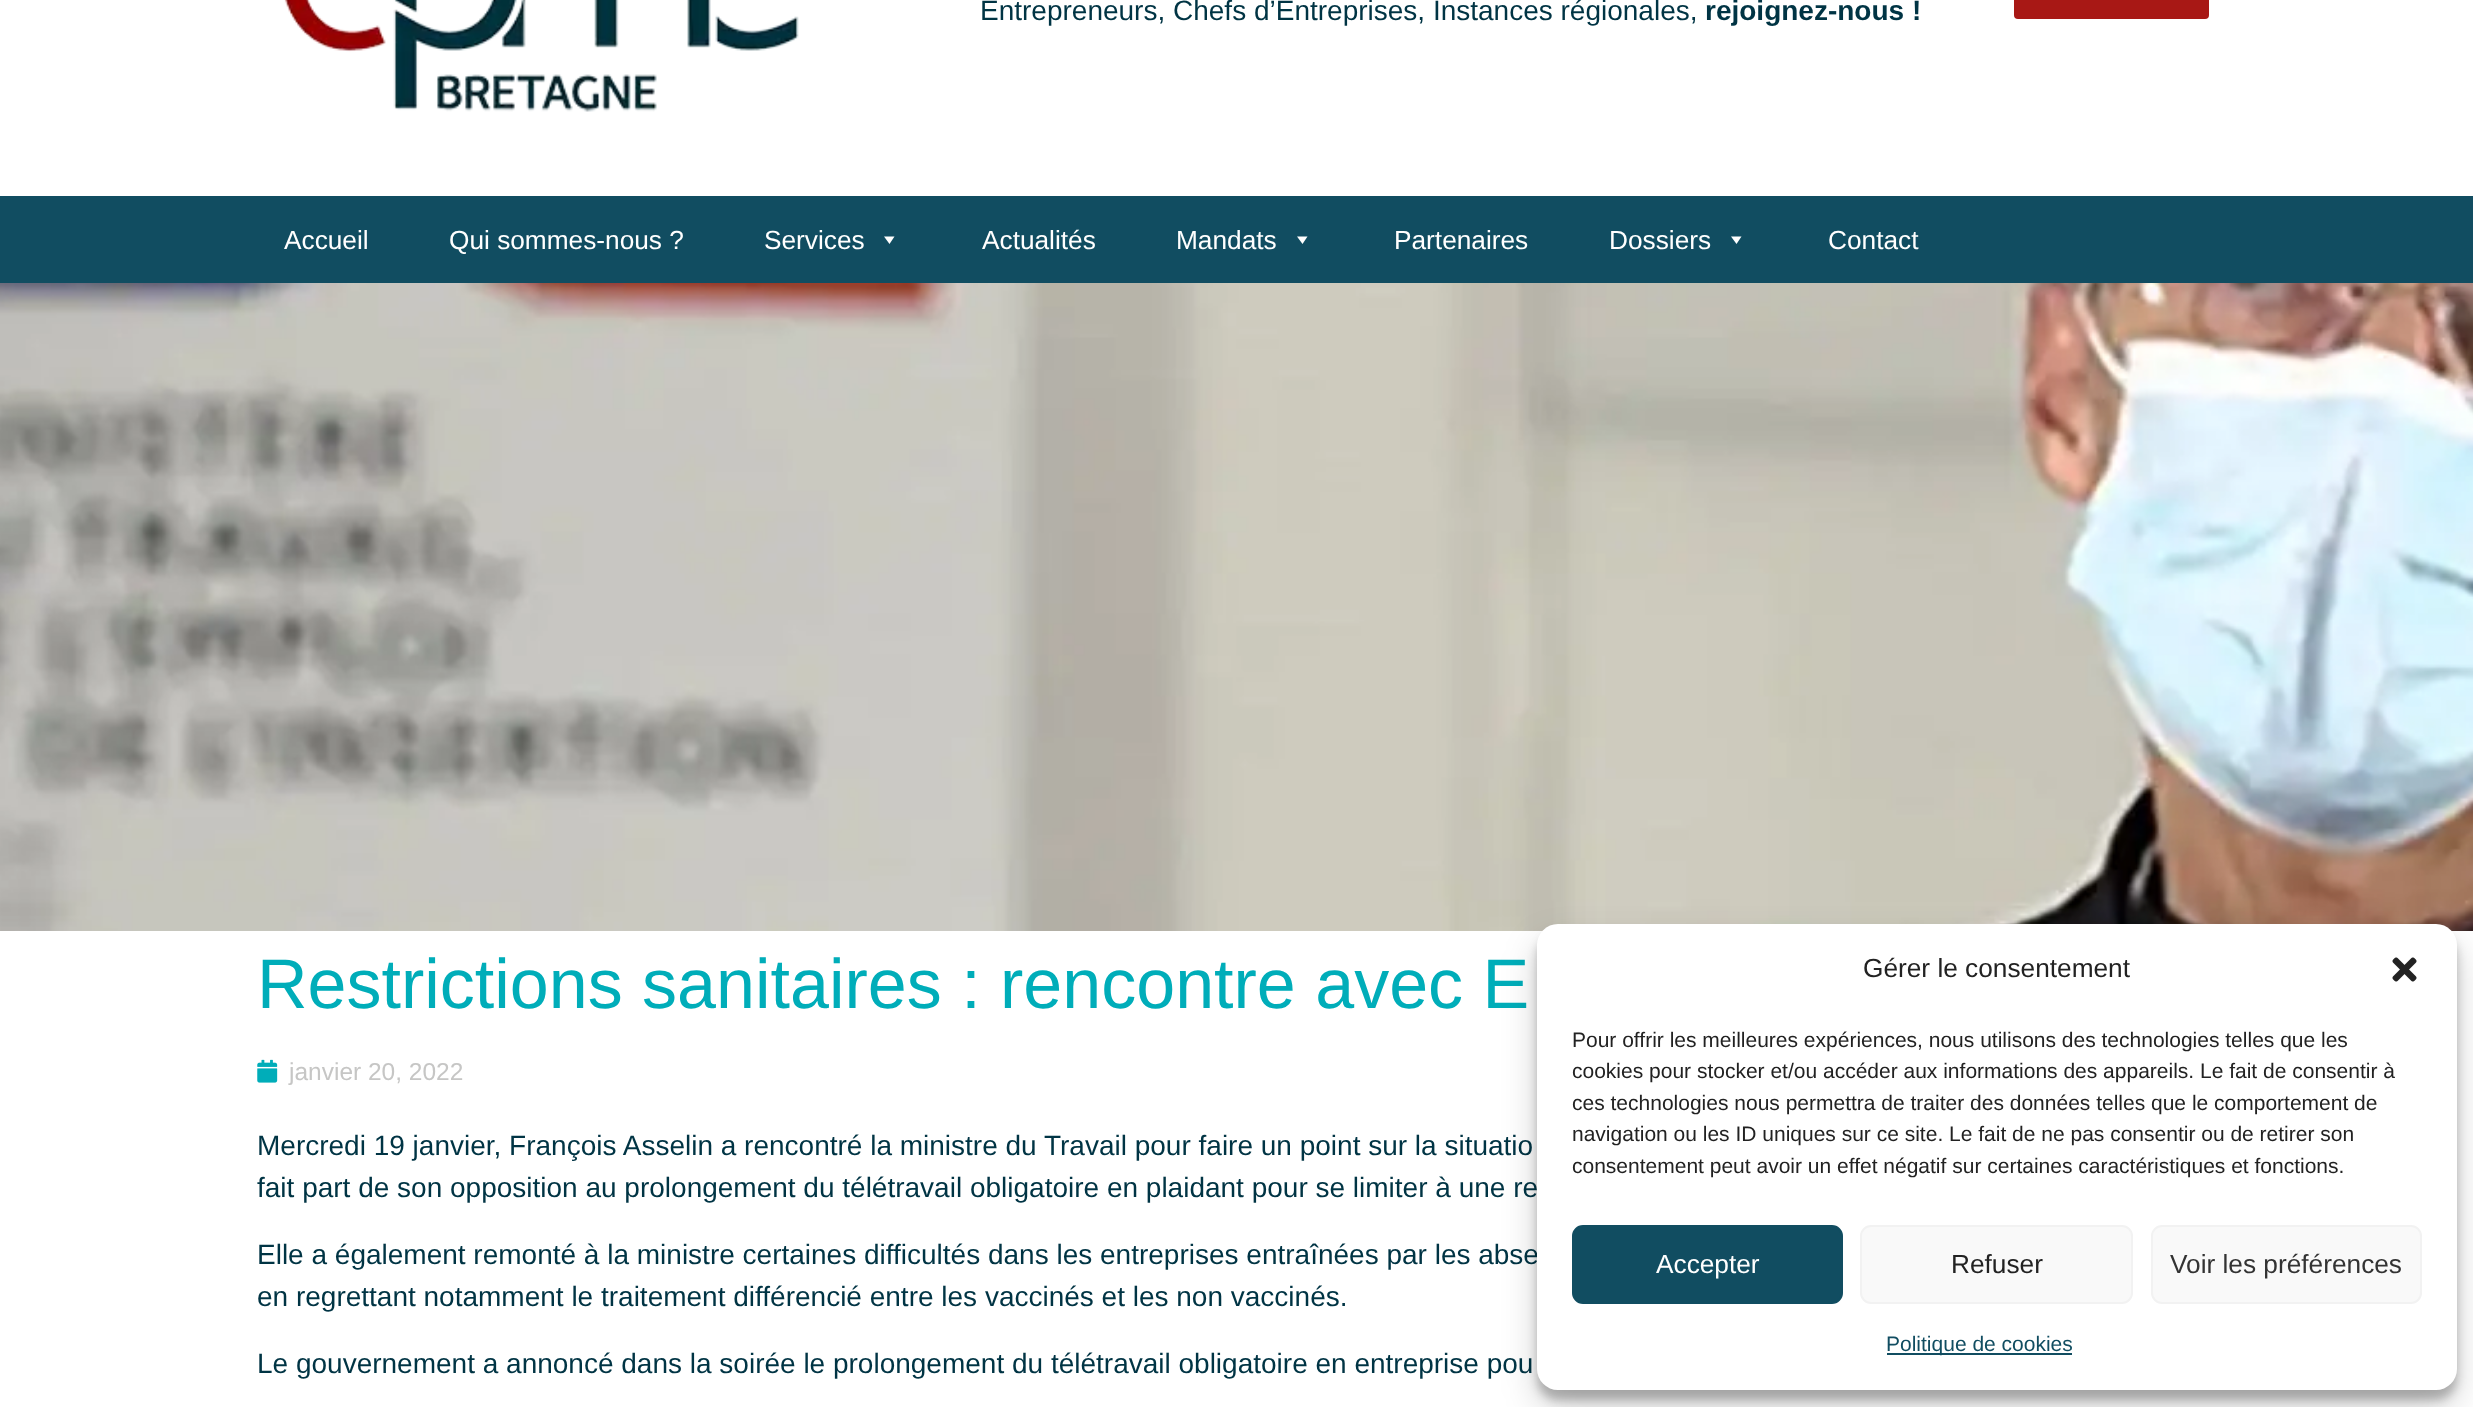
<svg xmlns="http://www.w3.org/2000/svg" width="2473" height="1407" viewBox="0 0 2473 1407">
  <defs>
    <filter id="blur1" x="-50%" y="-200%" width="200%" height="500%"><feGaussianBlur stdDeviation="5"/></filter>
    <filter id="blur2" x="-50%" y="-200%" width="200%" height="500%"><feGaussianBlur stdDeviation="17.5"/></filter>
  </defs>
  <rect width="100%" height="100%" fill="#ffffff"/>
  <image x="284" y="0" width="515" height="112" href="img1.png"/>
  <text x="980" y="20" font-family="Liberation Sans" font-size="28" fill="#003444">Entrepreneurs, Chefs d’Entreprises, Instances régionales,</text>
  <text x="1705" y="20" font-family="Liberation Sans" font-size="28" font-weight="bold" fill="#003444">rejoignez-nous !</text>
  <rect x="2014" y="-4" width="195" height="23" rx="4" fill="#a81815"/>
  <rect x="0" y="196" width="2473" height="87" fill="#114d61"/>
  <text x="284" y="249" font-family="Liberation Sans" font-size="26.25" fill="#ffffff">Accueil</text>
  <text x="449" y="249" font-family="Liberation Sans" font-size="26.25" fill="#ffffff">Qui sommes-nous ?</text>
  <text x="764" y="249" font-family="Liberation Sans" font-size="26.25" fill="#ffffff">Services</text>
  <path d="M894.5 236.5L889.5 244L884 236.5Z" fill="#ffffff"/>
  <text x="982" y="249" font-family="Liberation Sans" font-size="26.25" fill="#ffffff">Actualités</text>
  <text x="1176" y="249" font-family="Liberation Sans" font-size="26.25" fill="#ffffff">Mandats</text>
  <path d="M1307.5 236.5L1302.5 244L1297 236.5Z" fill="#ffffff"/>
  <text x="1394" y="249" font-family="Liberation Sans" font-size="26.25" fill="#ffffff">Partenaires</text>
  <text x="1609" y="249" font-family="Liberation Sans" font-size="26.25" fill="#ffffff">Dossiers</text>
  <path d="M1741.5 236.5L1736.5 244L1731 236.5Z" fill="#ffffff"/>
  <text x="1828" y="249" font-family="Liberation Sans" font-size="26.25" fill="#ffffff">Contact</text>
  <image x="0" y="283" width="2473" height="648" href="img2.png"/>
  <text x="257" y="1008" font-family="Liberation Sans" font-size="70" fill="#00adb9">Restrictions sanitaires : rencontre avec E</text>
  <image x="257" y="1059" width="21" height="24" href="img3.png"/>
  <text x="289" y="1080" font-family="Liberation Sans" font-size="24.5" fill="#c6c6c5">janvier 20, 2022</text>
  <text x="257" y="1155" font-family="Liberation Sans" font-size="28" fill="#003444">Mercredi 19 janvier, François Asselin a rencontré la ministre du Travail pour faire un point sur la situatio</text>
  <text x="257" y="1197" font-family="Liberation Sans" font-size="28" fill="#003444">fait part de son opposition au prolongement du télétravail obligatoire en plaidant pour se limiter à une re</text>
  <text x="257" y="1264" font-family="Liberation Sans" font-size="28" fill="#003444">Elle a également remonté à la ministre certaines difficultés dans les entreprises entraînées par les abse</text>
  <text x="257" y="1306" font-family="Liberation Sans" font-size="28" fill="#003444">en regrettant notamment le traitement différencié entre les vaccinés et les non vaccinés.</text>
  <text x="257" y="1373" font-family="Liberation Sans" font-size="28" fill="#003444">Le gouvernement a annoncé dans la soirée le prolongement du télétravail obligatoire en entreprise pou</text>
  <rect x="1537" y="935" width="920" height="465" rx="21" fill="#000000" fill-opacity="0.23" filter="url(#blur1)"/>
  <rect x="1537" y="942" width="920" height="465" rx="21" fill="#000000" fill-opacity="0.19" filter="url(#blur2)"/>
  <rect x="1537" y="924" width="920" height="466" rx="21" fill="#ffffff"/>
  <text x="1863" y="977" font-family="Liberation Sans" font-size="26.25" fill="#222222">Gérer le consentement</text>
  <image x="2392" y="957" width="25" height="25" href="img4.png"/>
  <text x="1572" y="1047" font-family="Liberation Sans" font-size="21" fill="#222222">Pour offrir les meilleures expériences, nous utilisons des technologies telles que les</text>
  <text x="1572" y="1078" font-family="Liberation Sans" font-size="21" fill="#222222">cookies pour stocker et/ou accéder aux informations des appareils. Le fait de consentir à</text>
  <text x="1572" y="1110" font-family="Liberation Sans" font-size="21" fill="#222222">ces technologies nous permettra de traiter des données telles que le comportement de</text>
  <text x="1572" y="1141" font-family="Liberation Sans" font-size="21" fill="#222222">navigation ou les ID uniques sur ce site. Le fait de ne pas consentir ou de retirer son</text>
  <text x="1572" y="1173" font-family="Liberation Sans" font-size="21" fill="#222222">consentement peut avoir un effet négatif sur certaines caractéristiques et fonctions.</text>
  <rect x="1573" y="1226" width="269" height="77" rx="10" fill="#114d61" stroke="#114d61" stroke-width="2"/>
  <text x="1656" y="1273" font-family="Liberation Sans" font-size="26.25" fill="#ffffff">Accepter</text>
  <rect x="1861" y="1226" width="271" height="77" rx="10" fill="#f9f9f9" stroke="#f2f2f2" stroke-width="2"/>
  <text x="1951" y="1273" font-family="Liberation Sans" font-size="26.25" fill="#222222">Refuser</text>
  <rect x="2152" y="1226" width="269" height="77" rx="10" fill="#f9f9f9" stroke="#f2f2f2" stroke-width="2"/>
  <text x="2170" y="1273" font-family="Liberation Sans" font-size="26.25" fill="#333333">Voir les préférences</text>
  <rect x="1887" y="1353" width="185" height="2" fill="#114d61"/>
  <text x="1886" y="1351" font-family="Liberation Sans" font-size="21" fill="#114d61">Politique de cookies</text>
</svg>
